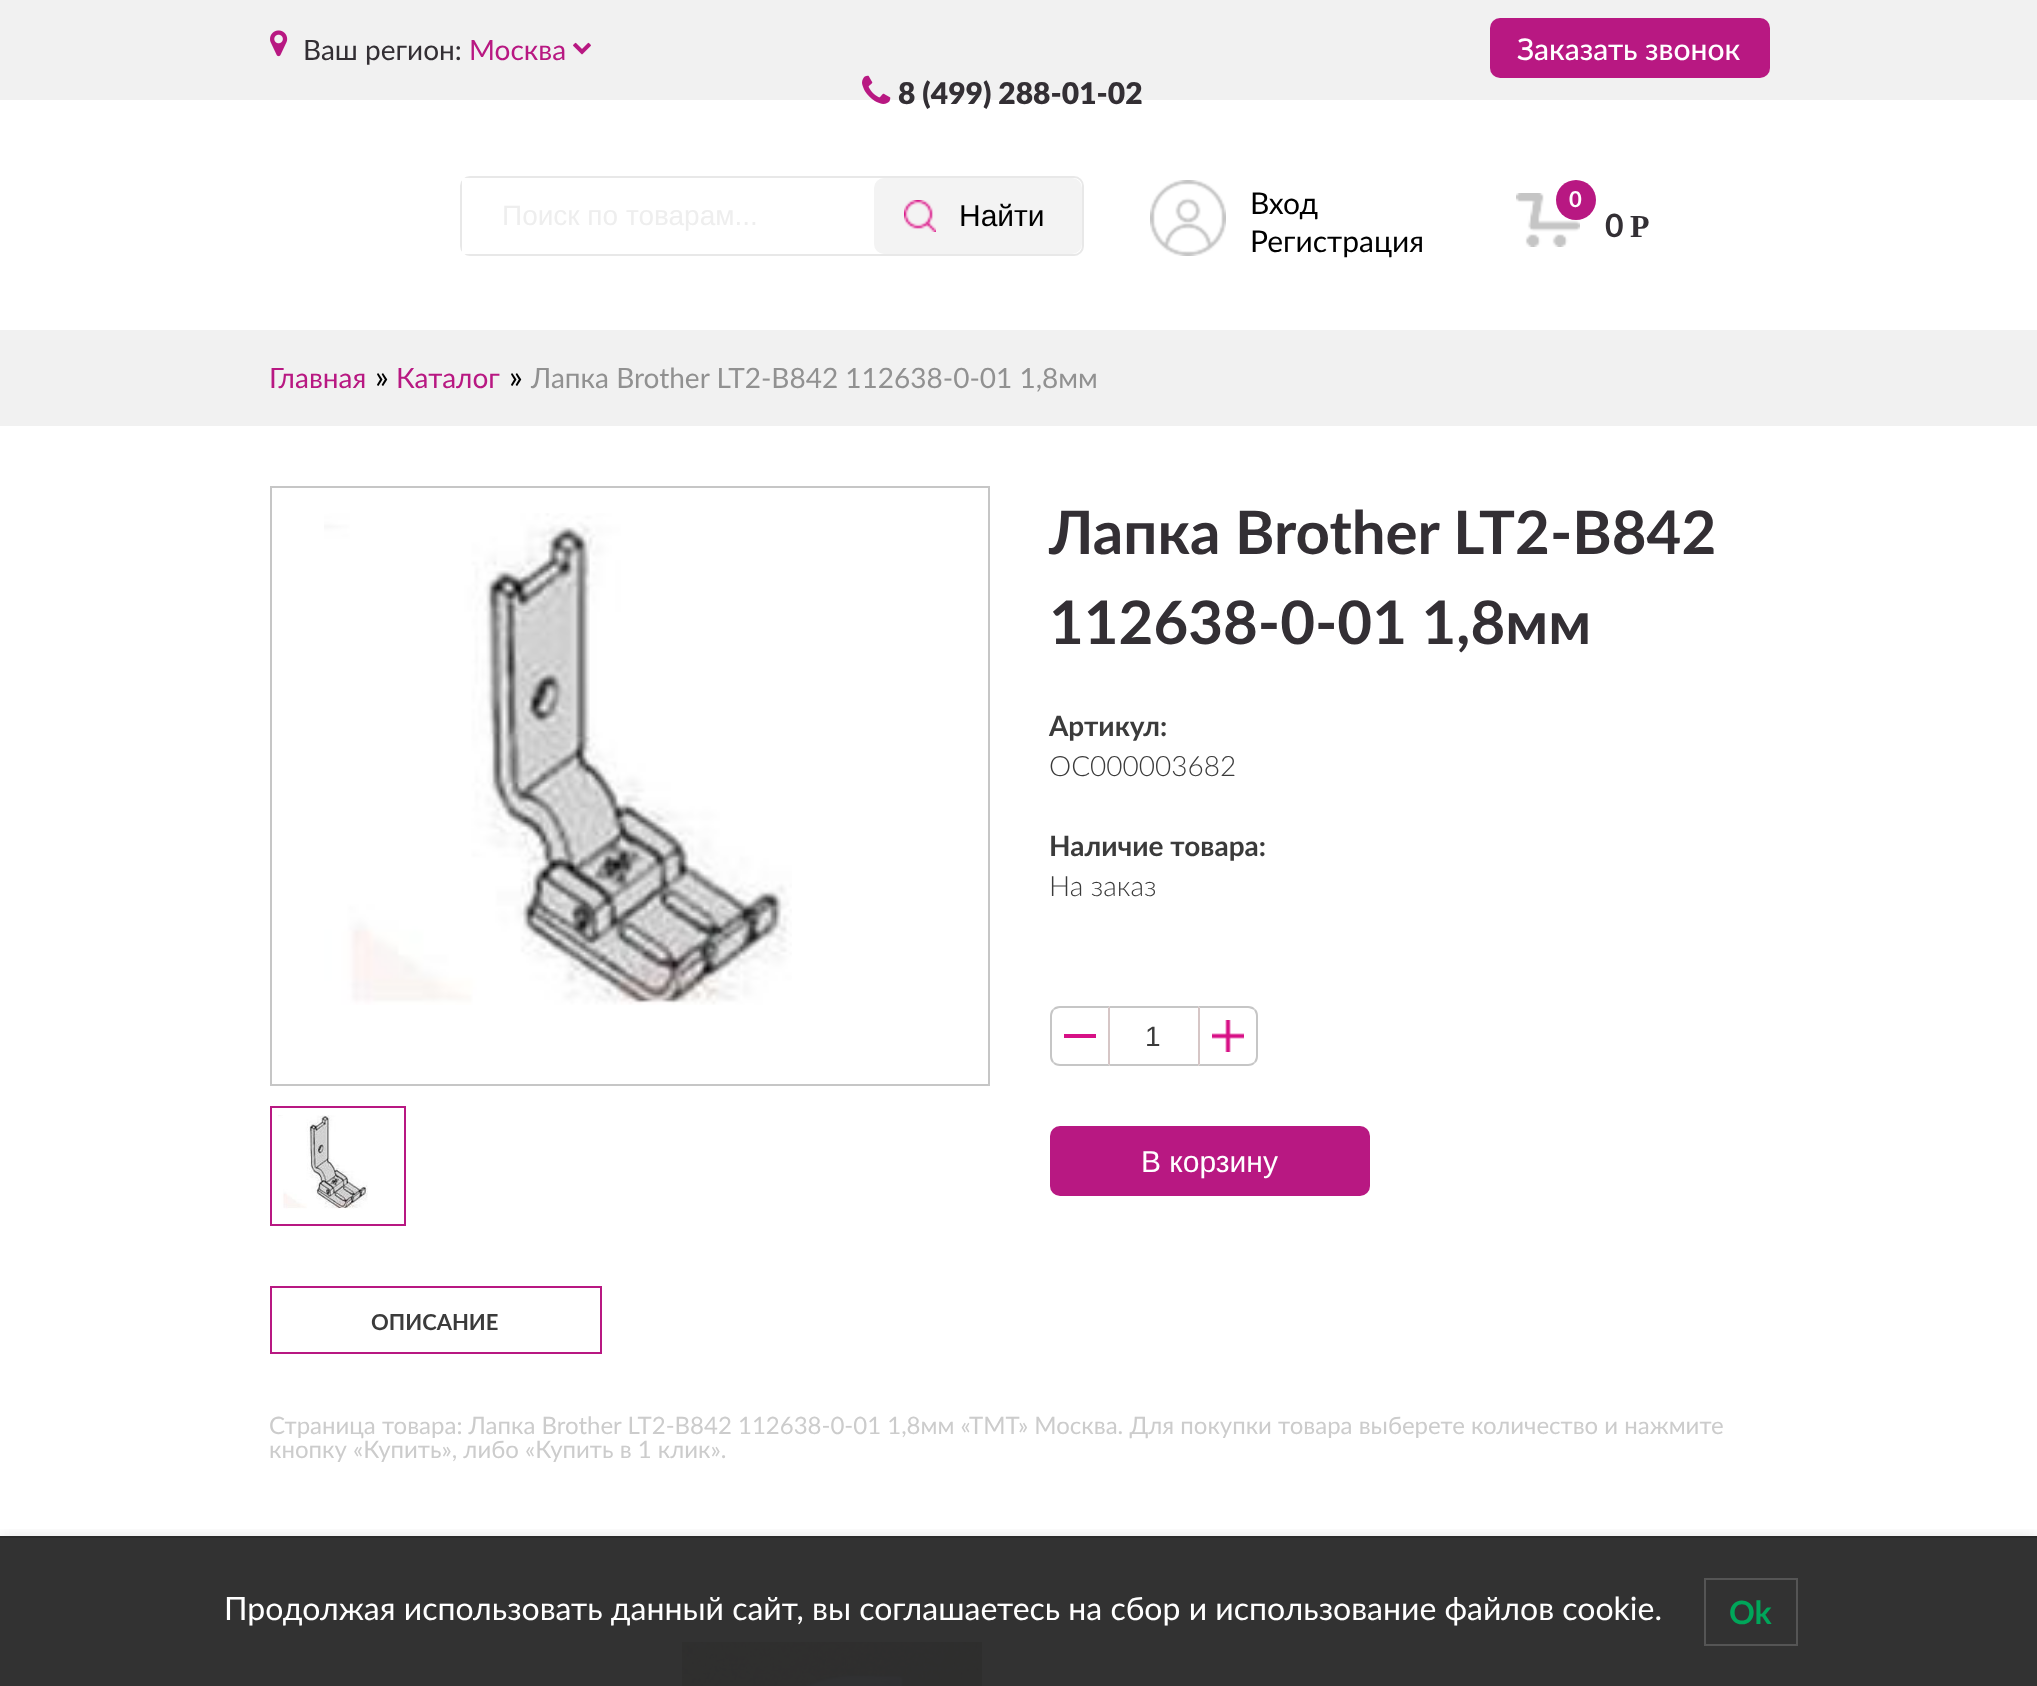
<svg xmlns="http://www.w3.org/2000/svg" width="2037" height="1686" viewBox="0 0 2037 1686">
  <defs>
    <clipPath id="clip1"><rect x="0" y="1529" width="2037" height="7"/></clipPath>
    <filter id="blur1" x="-50%" y="-200%" width="200%" height="500%"><feGaussianBlur stdDeviation="8"/></filter>
  </defs>
  <rect width="100%" height="100%" fill="#ffffff"/>
  <rect x="0" y="0" width="2037" height="100" fill="#f1f1f1"/>
  <image x="270" y="30" width="18" height="27" href="img1.png"/>
  <text x="303" y="60" font-family="Lato" font-size="28" fill="#332f34">Ваш регион:</text>
  <text x="469" y="60" font-family="Lato" font-size="28" fill="#b81882">Москва</text>
  <image x="573" y="42" width="18" height="13" href="img2.png"/>
  <rect x="1490" y="18" width="280" height="60" rx="10" fill="#b81882"/>
  <text x="1517" y="60" font-family="Lato" font-size="30" font-weight="500" fill="#ffffff">Заказать звонок</text>
  <image x="862" y="75" width="29" height="29" href="img3.png"/>
  <text x="898" y="104" font-family="Lato" font-size="30" font-weight="800" fill="#332f34">8 (499) 288-01-02</text>
  <rect x="461" y="177" width="622" height="78" rx="9" fill="none" stroke="#e8e8e8" stroke-width="2"/>
  <rect x="462" y="178" width="7" height="76" fill="#ffffff"/>
  <text x="502" y="225" font-family="Liberation Sans" font-size="28" fill="#eeeeee">Поиск по товарам...</text>
  <rect x="874" y="178" width="208" height="76" rx="10" fill="#f3f3f3"/>
  <image x="904" y="200" width="32" height="32" href="img4.png"/>
  <text x="959" y="226" font-family="Liberation Sans" font-size="30" fill="#000000">Найти</text>
  <image x="1150" y="180" width="76" height="76" href="img5.png"/>
  <text x="1250" y="214" font-family="Lato" font-size="30" fill="#000000">Вход</text>
  <text x="1250" y="252" font-family="Lato" font-size="30" fill="#000000">Регистрация</text>
  <image x="1516" y="193" width="64" height="54" href="img6.png"/>
  <circle cx="1576" cy="200" r="20" fill="#b81882"/>
  <text x="1569" y="207" font-family="Lato" font-size="22" font-weight="bold" fill="#ffffff">0</text>
  <text x="1605" y="237" font-family="Lato" font-size="32" font-weight="bold" fill="#332f34">0</text>
  <text x="1630" y="237" font-family="Liberation Serif" font-size="32" font-weight="bold" fill="#332f34">Р</text>
  <rect x="0" y="330" width="2037" height="96" fill="#f1f1f1"/>
  <text x="269" y="388" font-family="Lato" font-size="28" fill="#b81882">Главная</text>
  <text x="375" y="388" font-family="Lato" font-size="32" fill="#000000">»</text>
  <text x="396" y="388" font-family="Lato" font-size="28" fill="#b81882">Каталог</text>
  <text x="509" y="388" font-family="Lato" font-size="32" fill="#000000">»</text>
  <text x="531" y="388" font-family="Lato" font-size="28" fill="#919191">Лапка Brother LT2-B842 112638-0-01 1,8мм</text>
  <rect x="271" y="487" width="718" height="598" fill="none" stroke="#c6c6c6" stroke-width="2"/>
  <image x="324" y="513" width="468" height="492" href="img7.png"/>
  <rect x="271" y="1107" width="134" height="118" fill="none" stroke="#b81882" stroke-width="2"/>
  <image x="278" y="1115" width="90" height="94" href="img8.png"/>
  <text x="1049" y="554" font-family="Lato" font-size="60" font-weight="bold" fill="#332f34">Лапка Brother LT2-B842</text>
  <text x="1049" y="644" font-family="Lato" font-size="60" font-weight="bold" fill="#332f34">112638-0-01 1,8мм</text>
  <text x="1049" y="736" font-family="Lato" font-size="28" font-weight="bold" fill="#3b3b3b">Артикул:</text>
  <text x="1049" y="776" font-family="Lato" font-size="28" font-weight="300" fill="#3b3b3b">ОС000003682</text>
  <text x="1049" y="856" font-family="Lato" font-size="28" font-weight="bold" fill="#3b3b3b">Наличие товара:</text>
  <text x="1049" y="896" font-family="Lato" font-size="28" font-weight="300" fill="#3b3b3b">На заказ</text>
  <rect x="1064" y="1034" width="32" height="4" fill="#d71186"/>
  <path d="M1060 1006C1057 1006 1054 1007 1053 1009L1054 1010C1056 1009 1058 1008 1060 1008H1108L1110 1006Z" fill="#c6c6c6"/>
  <path d="M1110 1006L1108 1008V1064L1110 1066Z" fill="#d6c6c6"/>
  <path d="M1110 1066L1108 1064H1060C1058 1064 1056 1063 1054 1062L1053 1063C1054 1065 1057 1066 1060 1066Z" fill="#c6c6c6"/>
  <path d="M1050 1016V1056C1050 1059 1051 1062 1053 1063L1054 1062C1053 1060 1052 1058 1052 1056V1016C1052 1014 1053 1012 1054 1010L1053 1009C1051 1010 1050 1013 1050 1016Z" fill="#c6c6c6"/>
  <rect x="1110" y="1006" width="88" height="2" fill="#c6c6c6"/>
  <rect x="1110" y="1064" width="88" height="2" fill="#c6c6c6"/>
  <text x="1145" y="1046" font-family="Liberation Sans" font-size="28" fill="#3b3b3b">1</text>
  <image x="1212" y="1020" width="32" height="32" href="img9.png"/>
  <path d="M1198 1006L1200 1008H1248C1250 1008 1252 1009 1254 1010L1255 1009C1254 1007 1251 1006 1248 1006Z" fill="#c6c6c6"/>
  <path d="M1258 1056V1016C1258 1013 1257 1010 1255 1009L1254 1010C1255 1012 1256 1014 1256 1016V1056C1256 1058 1255 1060 1254 1062L1255 1063C1257 1062 1258 1059 1258 1056Z" fill="#c6c6c6"/>
  <path d="M1248 1066C1251 1066 1254 1065 1255 1063L1254 1062C1252 1063 1250 1064 1248 1064H1200L1198 1066Z" fill="#c6c6c6"/>
  <path d="M1198 1006V1066L1200 1064V1008Z" fill="#d6c6c6"/>
  <rect x="1050" y="1126" width="320" height="70" rx="10" fill="#b81882"/>
  <text x="1141" y="1172" font-family="Liberation Sans" font-size="30" fill="#ffffff">В корзину</text>
  <rect x="271" y="1287" width="330" height="66" fill="none" stroke="#b81882" stroke-width="2"/>
  <text x="371" y="1330" font-family="Lato" font-size="22" font-weight="bold" fill="#3b3b3b">ОПИСАНИЕ</text>
  <text x="269" y="1434" font-family="Lato" font-size="24" fill="#cccccc">Страница товара: Лапка Brother LT2-B842 112638-0-01 1,8мм «ТМТ» Москва. Для покупки товара выберете количество и нажмите</text>
  <text x="269" y="1458" font-family="Lato" font-size="24" fill="#cccccc">кнопку «Купить», либо «Купить в 1 клик».</text>
  <image x="290" y="1658" width="334" height="28" href="img10.png"/>
  <image x="682" y="1642" width="300" height="44" href="img11.png"/>
  <g clip-path="url(#clip1)">
    <rect x="0" y="1536" width="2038" height="150" fill="#000000" fill-opacity="0.1" filter="url(#blur1)"/>
  </g>
  <rect x="0" y="1538" width="2037" height="148" fill="#2b2b2b" fill-opacity="0.97"/>
  <rect x="0" y="1536" width="2037" height="2" fill="#2b2b2b"/>
  <text x="224" y="1620" font-family="Lato" font-size="32" fill="#ffffff">Продолжая использовать данный сайт, вы соглашаетесь на сбор и использование файлов cookie.</text>
  <rect x="1705" y="1579" width="92" height="66" fill="none" stroke="#555555" stroke-width="2"/>
  <text x="1729" y="1624" font-family="Lato" font-size="32" font-weight="bold" fill="#00a65a">Ok</text>
</svg>
